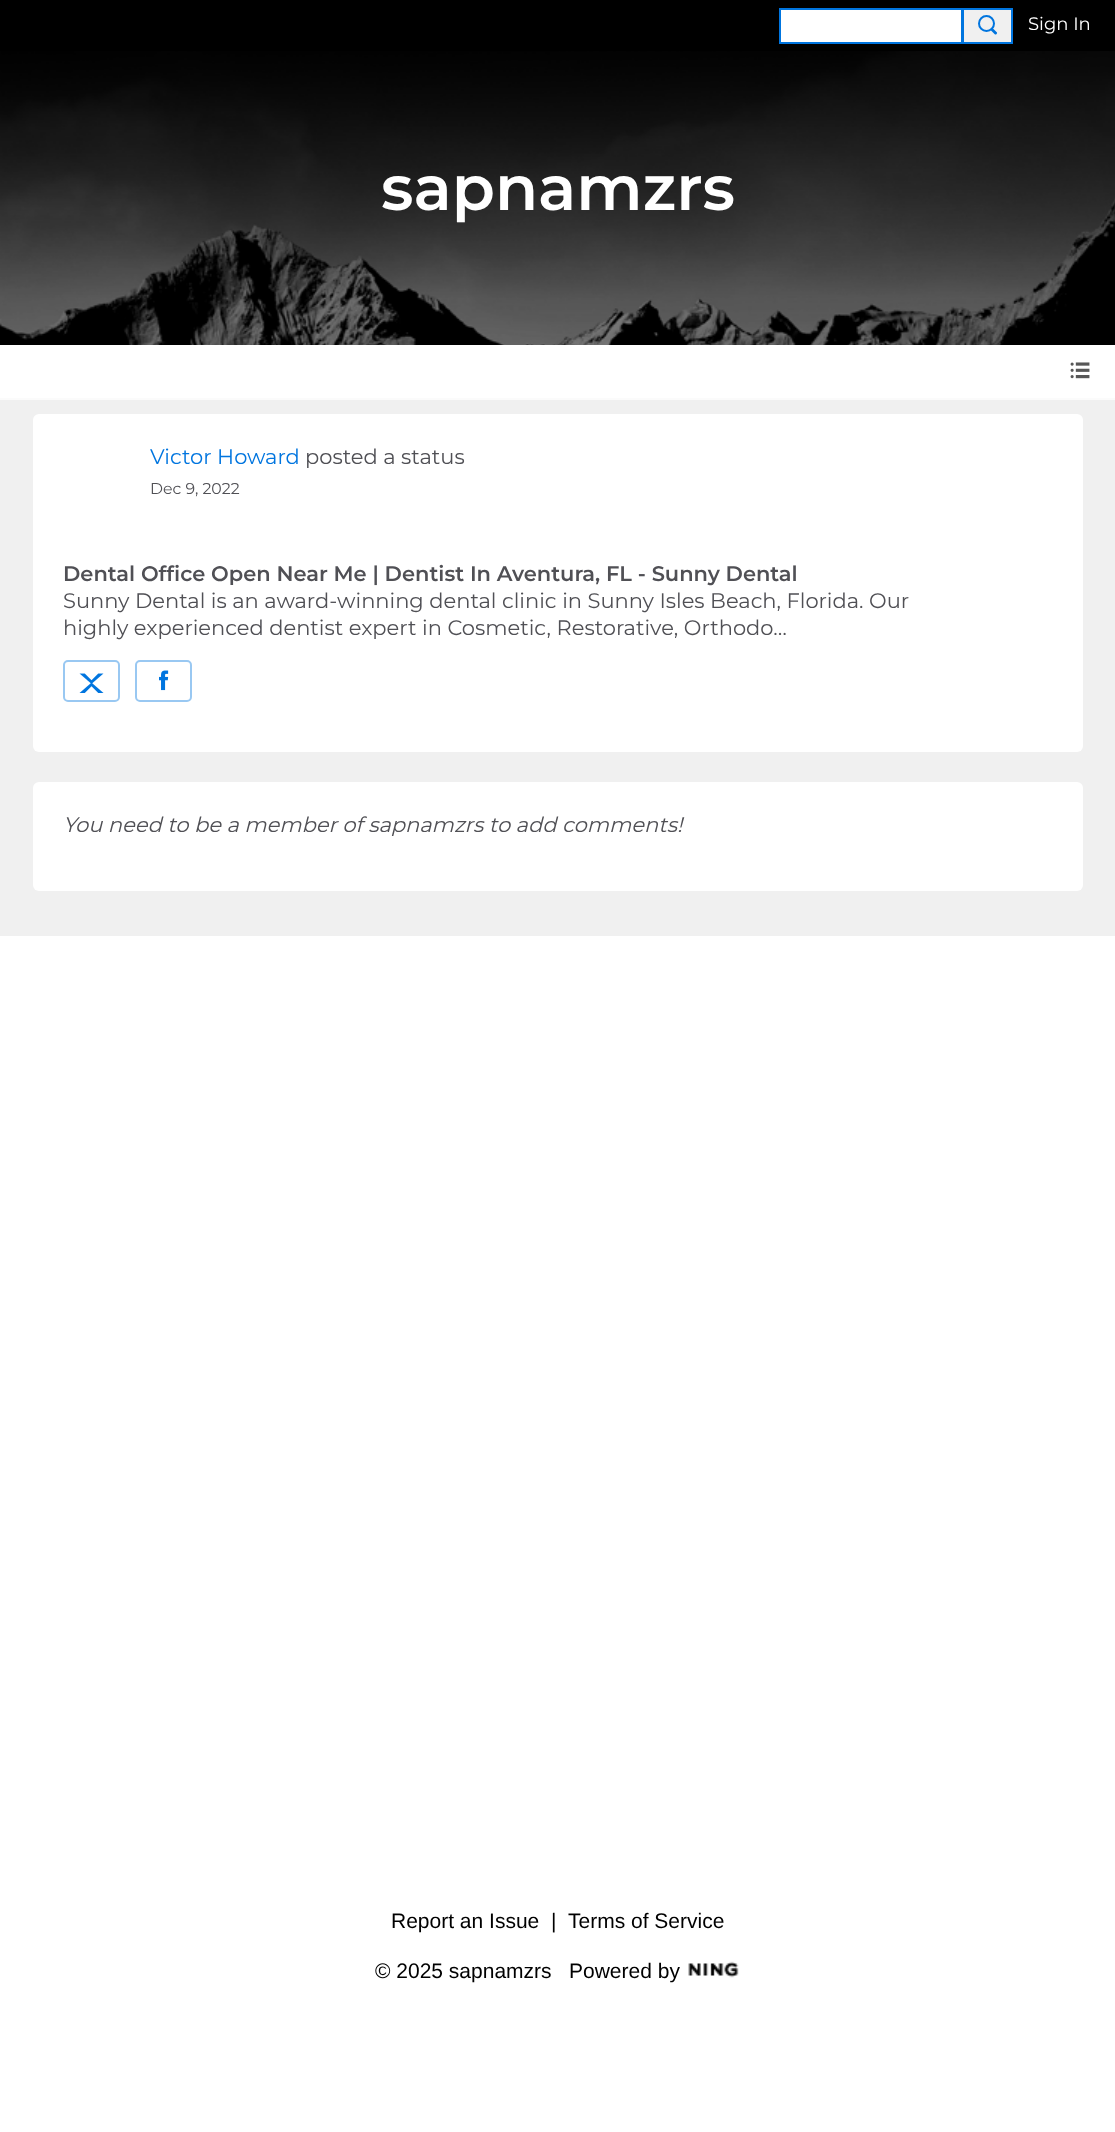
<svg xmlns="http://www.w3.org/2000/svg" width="1115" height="2132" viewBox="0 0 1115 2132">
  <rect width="100%" height="100%" fill="#ffffff"/>
  <rect x="0" y="0" width="1115" height="51" fill="#000000"/>
  <rect x="780" y="9" width="182" height="34" fill="#ffffff" stroke="#0075df" stroke-width="2"/>
  <rect x="963" y="9" width="49" height="34" fill="#ffffff" fill-opacity="0.94" stroke="#0075df" stroke-width="2"/>
  <circle cx="986.5" cy="23.5" r="7.5" fill="none" stroke="#0075df" stroke-width="2"/>
  <path d="M993.5 29L997 32.5C997.5 33.5 996 35 995 34.5L991 30.5C990.5 29 992.5 27.5 993.5 29Z" fill="#0075df"/>
  <text x="1028" y="30" font-family="Montserrat" font-size="18" font-weight="100" fill="#ffffff">Sign In</text>
  <image x="0" y="51" width="1115" height="294" href="img1.png"/>
  <text x="381" y="210" font-family="Montserrat" font-size="63" font-weight="600" fill="#ffffff">sapnamzrs</text>
  <image x="1070" y="362" width="20" height="17" href="img2.png"/>
  <rect x="0" y="400" width="1115" height="536" fill="#f0f0f0"/>
  <rect x="0" y="398" width="1115" height="2" fill="#fbfbfb"/>
  <rect x="33" y="414" width="1050" height="338" rx="6" fill="#ffffff"/>
  <text x="150" y="464" font-family="Montserrat" font-size="21" font-weight="100" fill="#0075df">Victor Howard</text>
  <text x="305" y="464" font-family="Montserrat" font-size="21" font-weight="100" fill="#505055">posted a status</text>
  <text x="150" y="494" font-family="Montserrat" font-size="15.75" font-weight="100" fill="#505055">Dec 9, 2022</text>
  <text x="63" y="581" font-family="Montserrat" font-size="21" font-weight="600" fill="#505055">Dental Office Open Near Me | Dentist In Aventura, FL - Sunny Dental</text>
  <text x="63" y="608" font-family="Montserrat" font-size="21" font-weight="100" fill="#505055">Sunny Dental is an award-winning dental clinic in Sunny Isles Beach, Florida. Our</text>
  <text x="63" y="635" font-family="Montserrat" font-size="21" font-weight="100" fill="#505055">highly experienced dentist expert in Cosmetic, Restorative, Orthodo…</text>
  <rect x="64" y="661" width="55" height="40" rx="4" fill="none" stroke="#99c8f2" stroke-width="2"/>
  <image x="79" y="673" width="25" height="20" href="img3.png"/>
  <rect x="136" y="661" width="55" height="40" rx="4" fill="none" stroke="#99c8f2" stroke-width="2"/>
  <image x="159" y="670" width="10" height="21" href="img4.png"/>
  <rect x="33" y="782" width="1050" height="109" rx="6" fill="#ffffff"/>
  <text x="63" y="832" font-family="Montserrat" font-size="21" font-weight="100" font-style="italic" fill="#505055">You need to be a member of sapnamzrs to add comments!</text>
  <text x="391" y="1928" font-family="Liberation Sans" font-size="21" fill="#000000">Report an Issue</text>
  <text x="551" y="1928" font-family="Liberation Sans" font-size="21" fill="#000000">|</text>
  <text x="568" y="1928" font-family="Liberation Sans" font-size="21" fill="#000000">Terms of Service</text>
  <text x="375" y="1978" font-family="Liberation Sans" font-size="21" fill="#000000">© 2025 sapnamzrs</text>
  <text x="569" y="1978" font-family="Liberation Sans" font-size="21" fill="#000000">Powered by</text>
  <image x="688" y="1961" width="51" height="17" href="img5.png"/>
</svg>
